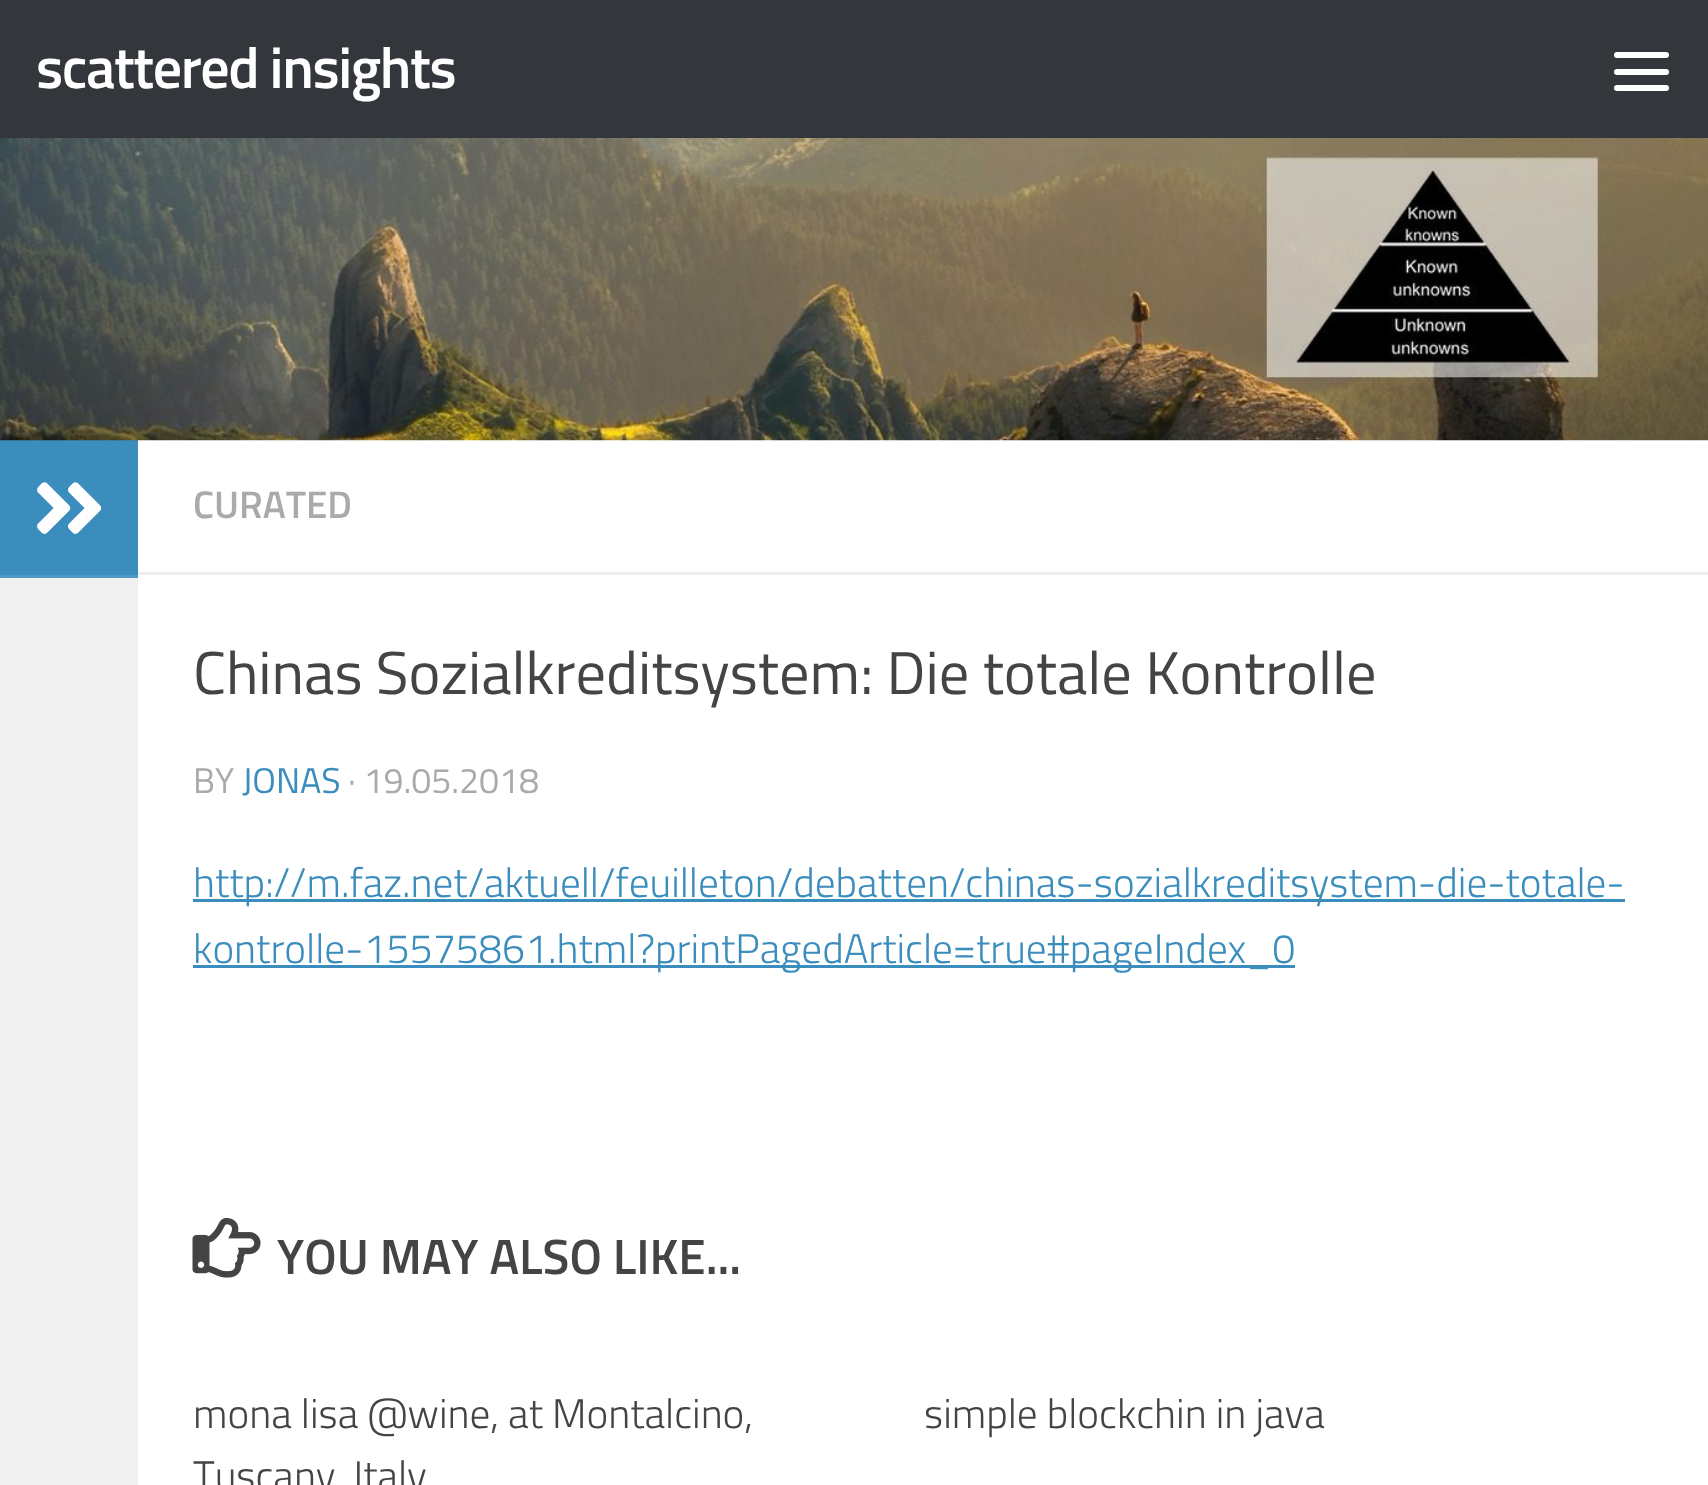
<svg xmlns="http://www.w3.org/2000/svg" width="1708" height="1485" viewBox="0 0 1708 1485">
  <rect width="100%" height="100%" fill="#ffffff"/>
  <rect x="0" y="0" width="1708" height="138" fill="#33363b"/>
  <text x="36" y="88" font-family="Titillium" font-size="58" font-weight="600" letter-spacing="-1.4" fill="#ffffff">scattered insights</text>
  <rect x="1614" y="52" width="55" height="6" rx="3" fill="#ffffff"/>
  <rect x="1614" y="69" width="55" height="6" rx="3" fill="#ffffff"/>
  <rect x="1614" y="85" width="55" height="6" rx="3" fill="#ffffff"/>
  <rect x="0" y="440" width="138" height="135" fill="#3b8dbd"/>
  <image x="0" y="138" width="1708" height="303" href="img1.png"/>
  <rect x="0" y="578" width="138" height="907" fill="#f0f0f0"/>
  <rect x="0" y="575" width="138" height="3" fill="#4f98c4"/>
  <image x="37" y="482" width="65" height="52" href="img2.png"/>
  <rect x="138" y="572" width="1570" height="3" fill="#eeeeee"/>
  <text x="193" y="518" font-family="Titillium" font-size="38.5" font-weight="600" fill="#aaaaaa">CURATED</text>
  <text x="193" y="694" font-family="Titillium" font-size="60.5" fill="#444444">Chinas Sozialkreditsystem: Die totale Kontrolle</text>
  <text x="193" y="793" font-family="Titillium" font-size="35.75" fill="#aaaaaa">BY</text>
  <text x="242" y="793" font-family="Titillium" font-size="35.75" fill="#3b8dbd">JONAS</text>
  <text x="348" y="793" font-family="Titillium" font-size="35.75" fill="#aaaaaa">· 19.05.2018</text>
  <rect x="193" y="899" width="1432" height="3" fill="#3b8dbd"/>
  <text x="193" y="897" font-family="Titillium" font-size="41.25" font-weight="300" fill="#3b8dbd">http://m.faz.net/aktuell/feuilleton/debatten/chinas-sozialkreditsystem-die-totale-</text>
  <rect x="193" y="965" width="1102" height="3" fill="#3b8dbd"/>
  <text x="193" y="963" font-family="Titillium" font-size="41.25" font-weight="300" fill="#3b8dbd">kontrolle-15575861.html?printPagedArticle=true#pageIndex_0</text>
  <image x="192" y="1217" width="69" height="61" href="img3.png"/>
  <text x="277" y="1274" font-family="Titillium" font-size="49.5" font-weight="600" fill="#444444">YOU MAY ALSO LIKE...</text>
  <text x="193" y="1428" font-family="Titillium" font-size="41.25" font-weight="300" fill="#444444">mona lisa @wine, at Montalcino,</text>
  <text x="193" y="1490" font-family="Titillium" font-size="41.25" font-weight="300" fill="#444444">Tuscany, Italy</text>
  <text x="924" y="1428" font-family="Titillium" font-size="41.25" font-weight="300" fill="#444444">simple blockchin in java</text>
</svg>
